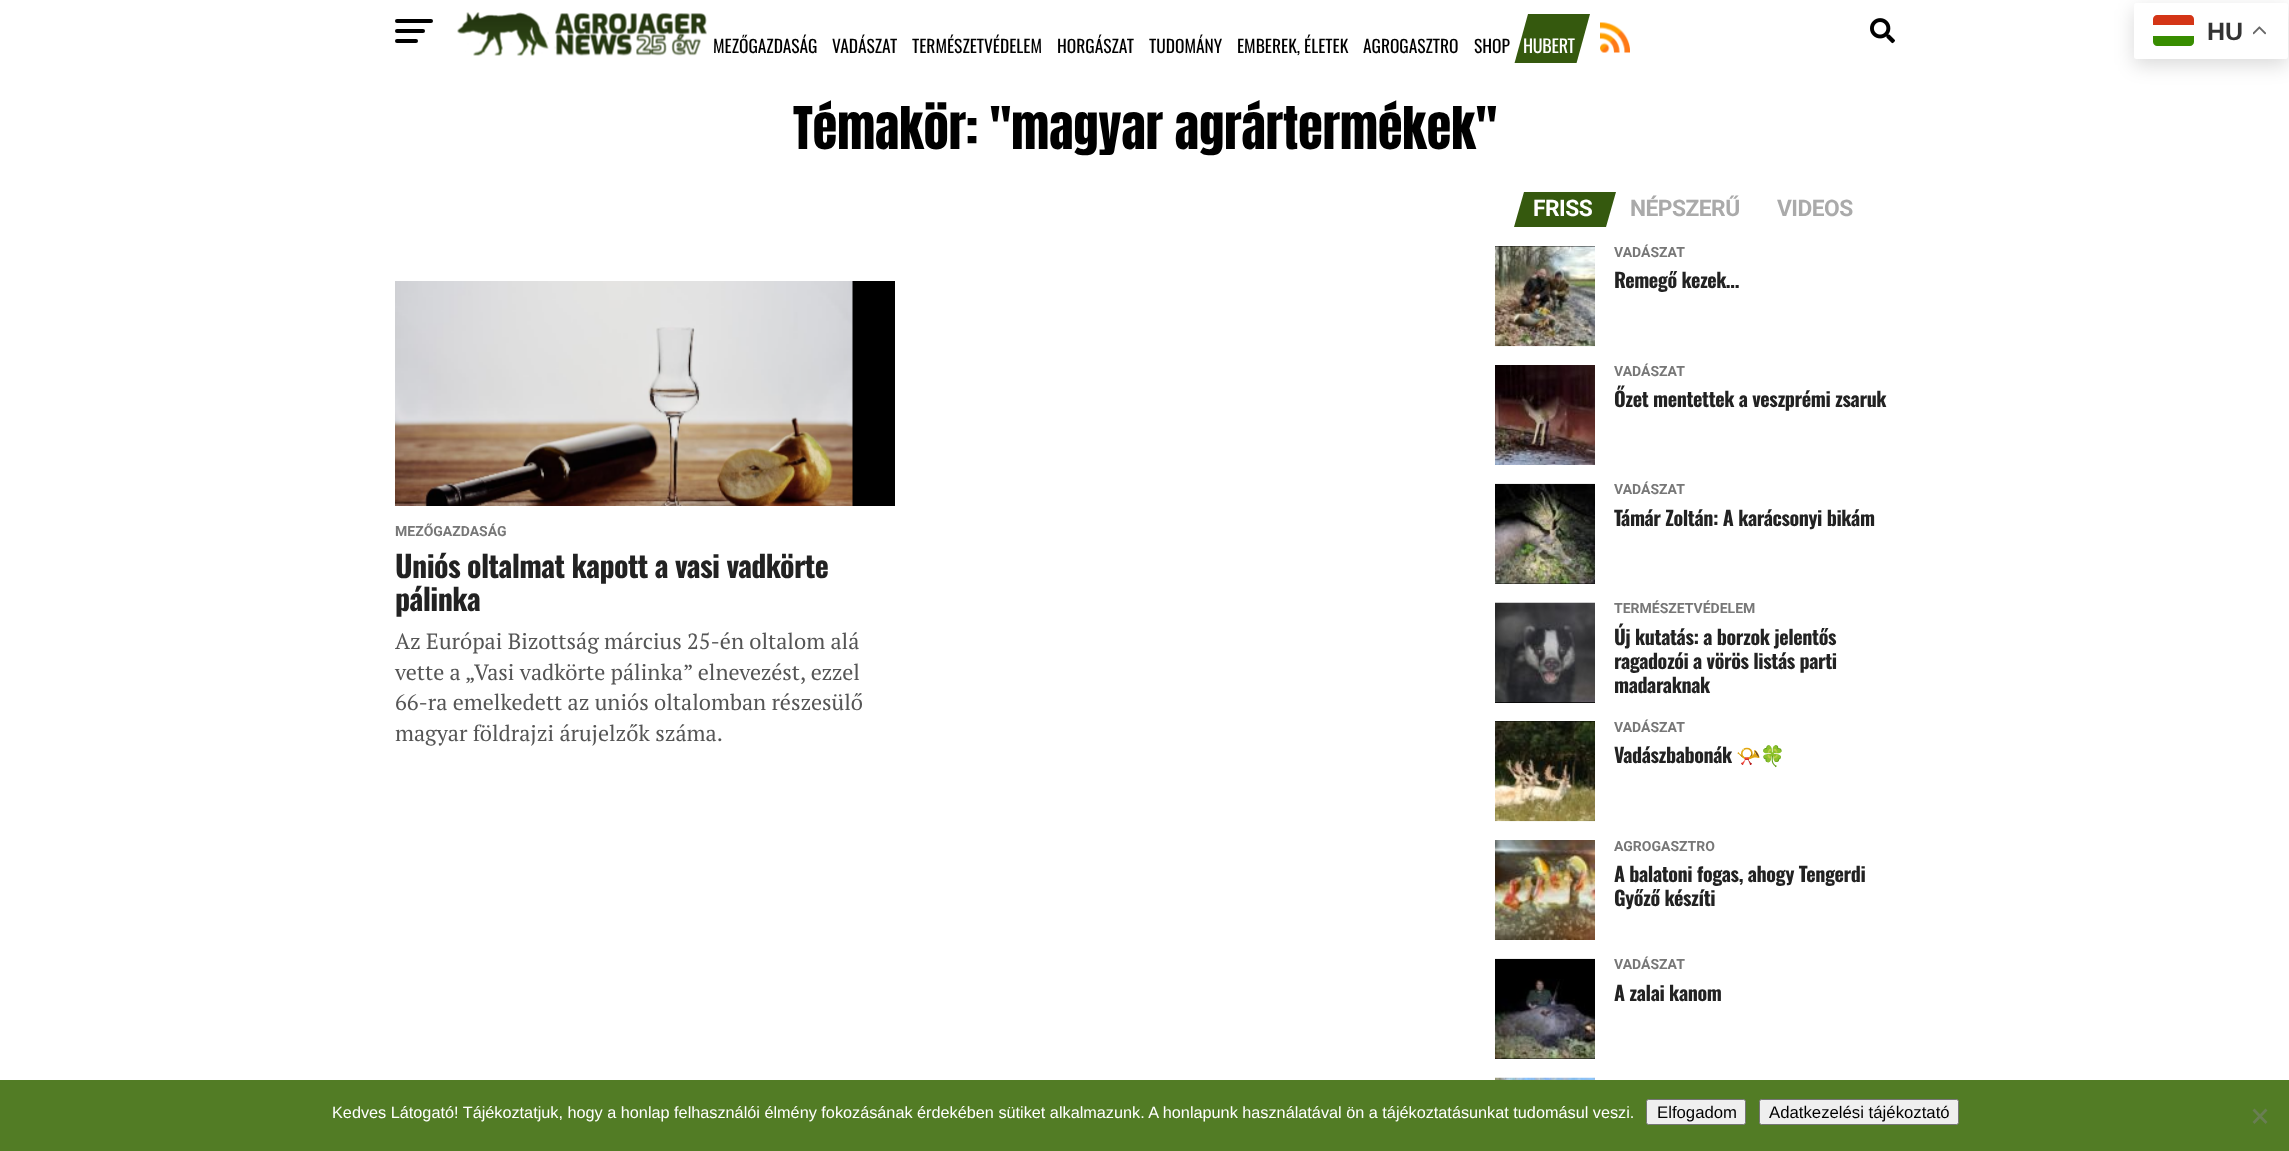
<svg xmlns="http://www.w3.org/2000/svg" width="2289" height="1151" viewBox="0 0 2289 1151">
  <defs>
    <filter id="blur1" x="-50%" y="-200%" width="200%" height="500%"><feGaussianBlur stdDeviation="9.5"/></filter>
    <clipPath id="clip1"><rect x="708" y="0" width="927" height="63"/></clipPath>
  </defs>
  <rect width="100%" height="100%" fill="#ffffff"/>
  <rect x="2134" y="9" width="154" height="56" rx="2.5" fill="#000000" fill-opacity="0.15" filter="url(#blur1)"/>
  <rect x="2134" y="3" width="154" height="56" rx="2.5" fill="#ffffff"/>
  <path d="M2153 36H2194V42C2194 44 2192 46 2190 46H2157C2155 46 2153 44 2153 42Z" fill="#388d00"/>
  <path d="M2157 15H2190C2192 15 2194 17 2194 19V25H2153V19C2153 17 2155 15 2157 15Z" fill="#d43516"/>
  <text x="2207" y="40" font-family="Liberation Sans" font-size="25" font-weight="bold" fill="#333333">HU</text>
  <image x="2253" y="26" width="13" height="9" href="img1.png"/>
  <rect x="395" y="19" width="38" height="4" rx="2" fill="#000000"/>
  <rect x="395" y="29" width="30" height="4" rx="2" fill="#000000"/>
  <rect x="395" y="39" width="23" height="4" rx="2" fill="#000000"/>
  <image x="457" y="12" width="250" height="44" href="img2.png"/>
  <text x="713" y="53" font-family="Oswald" font-size="17.5" fill="#000000">MEZŐGAZDASÁG</text>
  <text x="832" y="53" font-family="Oswald" font-size="17.5" fill="#000000">VADÁSZAT</text>
  <text x="912" y="53" font-family="Oswald" font-size="17.5" fill="#000000">TERMÉSZETVÉDELEM</text>
  <text x="1057" y="53" font-family="Oswald" font-size="17.5" fill="#000000">HORGÁSZAT</text>
  <text x="1149" y="53" font-family="Oswald" font-size="17.5" fill="#000000">TUDOMÁNY</text>
  <text x="1237" y="53" font-family="Oswald" font-size="17.5" fill="#000000">EMBEREK, ÉLETEK</text>
  <text x="1363" y="53" font-family="Oswald" font-size="17.5" fill="#000000">AGROGASZTRO</text>
  <text x="1474" y="53" font-family="Oswald" font-size="17.5" fill="#000000">SHOP</text>
  <g clip-path="url(#clip1)">
    <path d="M1528 14H1590L1573 76H1511Z" fill="#35590e"/>
  </g>
  <text x="1523" y="53" font-family="Oswald" font-size="18" letter-spacing="-0.25" fill="#ffffff">HUBERT</text>
  <image x="1600" y="22" width="30" height="31" href="img3.png"/>
  <image x="1870" y="18" width="25" height="26" href="img4.png"/>
  <text x="793" y="149" font-family="Anton" font-size="50" fill="#000000">Témakör: "magyar agrártermékek"</text>
  <rect x="852" y="281" width="43" height="225" fill="#000000"/>
  <image x="395" y="281" width="458" height="225" href="img5.png"/>
  <text x="395" y="536" font-family="Roboto" font-size="14" font-weight="bold" fill="#777777">MEZŐGAZDASÁG</text>
  <text x="395" y="578" font-family="Oswald" font-size="30" font-weight="bold" letter-spacing="-0.6" fill="#222222">Uniós oltalmat kapott a vasi vadkörte</text>
  <text x="395" y="611" font-family="Oswald" font-size="30" font-weight="bold" letter-spacing="-0.6" fill="#222222">pálinka</text>
  <text x="395" y="649" font-family="PT Serif" font-size="22" fill="#555555">Az Európai Bizottság március 25-én oltalom alá</text>
  <text x="395" y="680" font-family="PT Serif" font-size="22" fill="#555555">vette a „Vasi vadkörte pálinka” elnevezést, ezzel</text>
  <text x="395" y="710" font-family="PT Serif" font-size="22" fill="#555555">66-ra emelkedett az uniós oltalomban részesülő</text>
  <text x="395" y="741" font-family="PT Serif" font-size="22" fill="#555555">magyar földrajzi árujelzők száma.</text>
  <path d="M1524 192H1616L1606 227H1514Z" fill="#35590e"/>
  <text x="1533" y="216" font-family="Roboto" font-size="22.75" font-weight="bold" letter-spacing="-0.5" fill="#ffffff">FRISS</text>
  <text x="1630" y="216" font-family="Roboto" font-size="22.75" font-weight="bold" letter-spacing="-0.5" fill="#aaaaaa">NÉPSZERŰ</text>
  <text x="1777" y="216" font-family="Roboto" font-size="22.75" font-weight="bold" letter-spacing="-0.5" fill="#aaaaaa">VIDEOS</text>
  <rect x="1495" y="246" width="100" height="1" fill="#000000"/>
  <image x="1495" y="246" width="100" height="101" href="img6.png"/>
  <text x="1614" y="257" font-family="Roboto" font-size="14" font-weight="bold" fill="#777777">VADÁSZAT</text>
  <text x="1614" y="288" font-family="Oswald" font-size="20" font-weight="bold" letter-spacing="-0.4" fill="#222222">Remegő kezek…</text>
  <image x="1495" y="365" width="100" height="100" href="img7.png"/>
  <text x="1614" y="376" font-family="Roboto" font-size="14" font-weight="bold" fill="#777777">VADÁSZAT</text>
  <text x="1614" y="407" font-family="Oswald" font-size="20" font-weight="bold" letter-spacing="-0.4" fill="#222222">Őzet mentettek a veszprémi zsaruk</text>
  <rect x="1495" y="583" width="100" height="1" fill="#000000"/>
  <image x="1495" y="483" width="100" height="101" href="img8.png"/>
  <text x="1614" y="494" font-family="Roboto" font-size="14" font-weight="bold" fill="#777777">VADÁSZAT</text>
  <text x="1614" y="526" font-family="Oswald" font-size="20" font-weight="bold" letter-spacing="-0.4" fill="#222222">Támár Zoltán: A karácsonyi bikám</text>
  <rect x="1495" y="702" width="100" height="1" fill="#000000"/>
  <image x="1495" y="602" width="100" height="101" href="img9.png"/>
  <text x="1614" y="613" font-family="Roboto" font-size="14" font-weight="bold" fill="#777777">TERMÉSZETVÉDELEM</text>
  <text x="1614" y="645" font-family="Oswald" font-size="20" font-weight="bold" letter-spacing="-0.4" fill="#222222">Új kutatás: a borzok jelentős</text>
  <text x="1614" y="669" font-family="Oswald" font-size="20" font-weight="bold" letter-spacing="-0.4" fill="#222222">ragadozói a vörös listás parti</text>
  <text x="1614" y="693" font-family="Oswald" font-size="20" font-weight="bold" letter-spacing="-0.4" fill="#222222">madaraknak</text>
  <rect x="1495" y="721" width="100" height="1" fill="#000000"/>
  <image x="1495" y="721" width="100" height="101" href="img10.png"/>
  <text x="1614" y="732" font-family="Roboto" font-size="14" font-weight="bold" fill="#777777">VADÁSZAT</text>
  <text x="1614" y="763" font-family="Oswald" font-size="20" font-weight="bold" letter-spacing="-0.4" fill="#222222">Vadászbabonák</text>
  <text x="1736" y="763" font-family="Noto Color Emoji" font-size="20" font-weight="bold" letter-spacing="-0.4" fill="#222222">📯🍀</text>
  <image x="1495" y="840" width="100" height="100" href="img11.png"/>
  <text x="1614" y="851" font-family="Roboto" font-size="14" font-weight="bold" fill="#777777">AGROGASZTRO</text>
  <text x="1614" y="882" font-family="Oswald" font-size="20" font-weight="bold" letter-spacing="-0.4" fill="#222222">A balatoni fogas, ahogy Tengerdi</text>
  <text x="1614" y="906" font-family="Oswald" font-size="20" font-weight="bold" letter-spacing="-0.4" fill="#222222">Győző készíti</text>
  <rect x="1495" y="1058" width="100" height="1" fill="#000000"/>
  <image x="1495" y="958" width="100" height="101" href="img12.png"/>
  <text x="1614" y="969" font-family="Roboto" font-size="14" font-weight="bold" fill="#777777">VADÁSZAT</text>
  <text x="1614" y="1001" font-family="Oswald" font-size="20" font-weight="bold" letter-spacing="-0.4" fill="#222222">A zalai kanom</text>
  <image x="1495" y="1077" width="100" height="3" href="img13.png"/>
  <rect x="0" y="1080" width="2289" height="71" fill="#527c25"/>
  <text x="332" y="1118" font-family="Liberation Sans" font-size="16.25" fill="#ffffff">Kedves Látogató! Tájékoztatjuk, hogy a honlap felhasználói élmény fokozásának érdekében sütiket alkalmazunk. A honlapunk használatával ön a tájékoztatásunkat tudomásul veszi.</text>
  <rect x="1646.5" y="1099.5" width="99" height="25" rx="2" fill="#efefef" stroke="#767676"/>
  <text x="1657" y="1118" font-family="Liberation Sans" font-size="16.75" fill="#000000">Elfogadom</text>
  <rect x="1759.5" y="1099.5" width="199" height="25" rx="2" fill="#efefef" stroke="#767676"/>
  <text x="1769" y="1118" font-family="Liberation Sans" font-size="16.75" fill="#000000">Adatkezelési tájékoztató</text>
  <path d="M2265.5 1108.5L2267.5 1110.5L2254.5 1124L2252.5 1122Z" fill="#697e53"/>
  <path d="M2252.5 1110.5L2254.5 1108.5L2267.5 1122L2265.5 1124Z" fill="#697e53"/>
</svg>
